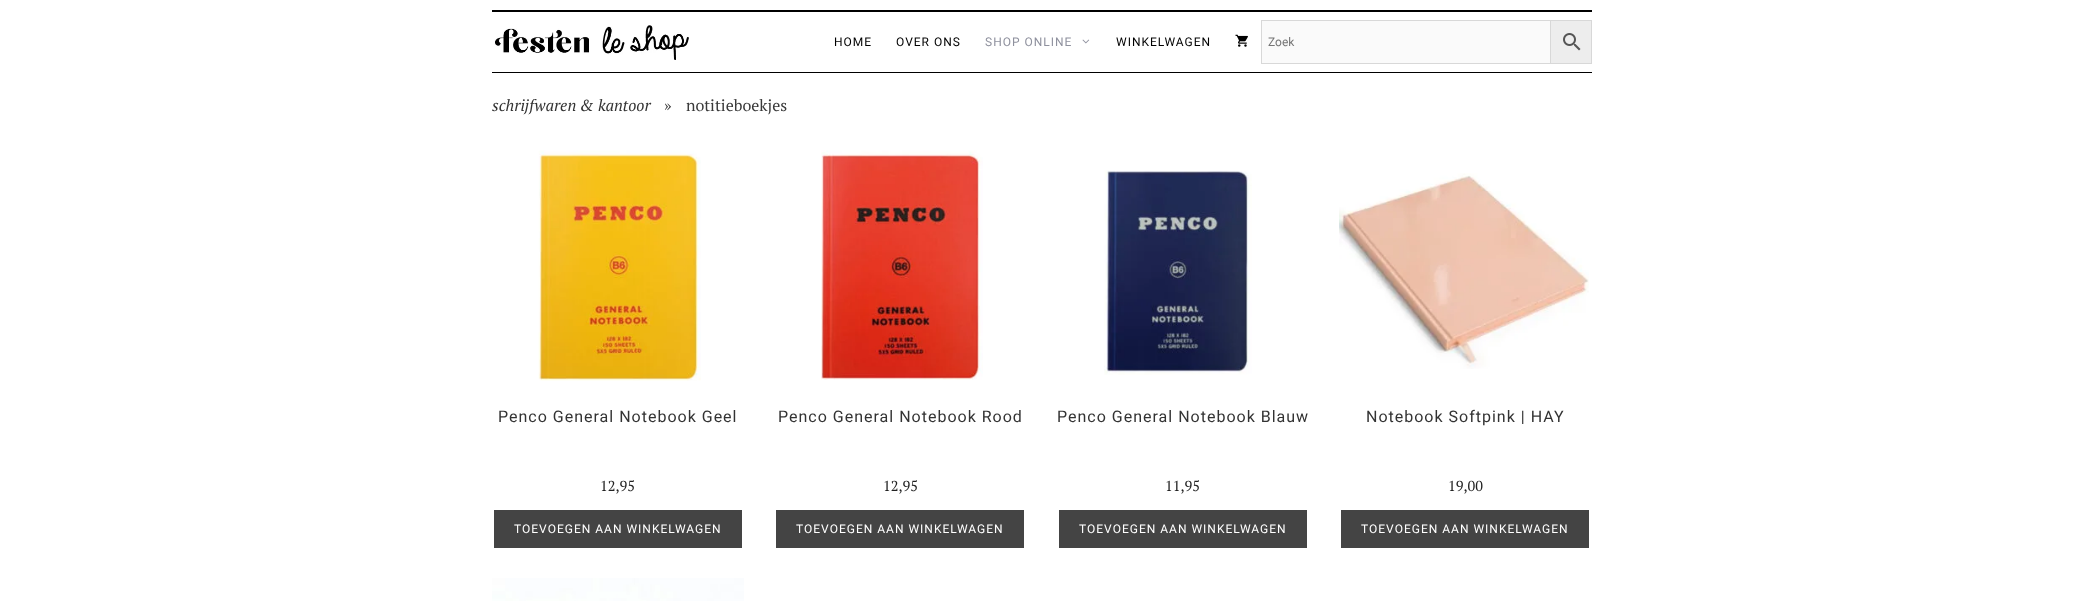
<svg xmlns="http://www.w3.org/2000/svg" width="2083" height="601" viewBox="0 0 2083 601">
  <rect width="100%" height="100%" fill="#ffffff"/>
  <rect x="492" y="10" width="1100" height="2" fill="#000000"/>
  <rect x="492" y="72" width="1100" height="1" fill="#000000"/>
  <image x="494" y="25" width="195" height="35" href="img1.png"/>
  <text x="834" y="46" font-family="Roboto" font-size="12" letter-spacing="1" fill="#000000">HOME</text>
  <text x="896" y="46" font-family="Roboto" font-size="12" letter-spacing="1" fill="#000000">OVER ONS</text>
  <text x="985" y="46" font-family="Roboto" font-size="12" letter-spacing="1" fill="#8f919e">SHOP ONLINE</text>
  <image x="1082" y="39" width="8" height="5" href="img2.png"/>
  <text x="1116" y="46" font-family="Roboto" font-size="12" letter-spacing="1" fill="#000000">WINKELWAGEN</text>
  <image x="1235" y="34" width="13" height="13" href="img3.png"/>
  <rect x="1550.5" y="20.5" width="41" height="43" fill="#ededed" stroke="#d8d8d8"/>
  <rect x="1261.5" y="20.5" width="289" height="43" fill="#fafafa" stroke="#d8d8d8"/>
  <text x="1268" y="46" font-family="Roboto" font-size="12" fill="#757575">Zoek</text>
  <image x="1563" y="33" width="18" height="18" href="img4.png"/>
  <text x="492" y="111" font-family="PT Serif" font-size="16" font-style="italic" fill="#333333">schrijfwaren &amp; kantoor</text>
  <text x="664" y="111" font-family="PT Serif" font-size="16" fill="#3a3a3a">»</text>
  <text x="686" y="111" font-family="PT Serif" font-size="16" fill="#3a3a3a">notitieboekjes</text>
  <image x="538" y="150" width="163" height="231" href="img5.png"/>
  <text x="498" y="422" font-family="Roboto" font-size="16" letter-spacing="1" fill="#333333">Penco General Notebook Geel</text>
  <text x="600" y="491" font-family="PT Serif" font-size="14.5" fill="#222222">12,95</text>
  <rect x="494" y="510" width="248" height="38" fill="#444444"/>
  <text x="514" y="533" font-family="Roboto" font-size="12" letter-spacing="1" fill="#ffffff">TOEVOEGEN AAN WINKELWAGEN</text>
  <image x="821" y="150" width="162" height="230" href="img6.png"/>
  <text x="778" y="422" font-family="Roboto" font-size="16" letter-spacing="1" fill="#333333">Penco General Notebook Rood</text>
  <text x="883" y="491" font-family="PT Serif" font-size="14.5" fill="#222222">12,95</text>
  <rect x="776" y="510" width="248" height="38" fill="#444444"/>
  <text x="796" y="533" font-family="Roboto" font-size="12" letter-spacing="1" fill="#ffffff">TOEVOEGEN AAN WINKELWAGEN</text>
  <image x="1104" y="170" width="148" height="205" href="img7.png"/>
  <text x="1057" y="422" font-family="Roboto" font-size="16" letter-spacing="1" fill="#333333">Penco General Notebook Blauw</text>
  <text x="1165" y="491" font-family="PT Serif" font-size="14.5" fill="#222222">11,95</text>
  <rect x="1059" y="510" width="248" height="38" fill="#444444"/>
  <text x="1079" y="533" font-family="Roboto" font-size="12" letter-spacing="1" fill="#ffffff">TOEVOEGEN AAN WINKELWAGEN</text>
  <image x="1339" y="173" width="250" height="196" href="img8.png"/>
  <text x="1366" y="422" font-family="Roboto" font-size="16" letter-spacing="1" fill="#333333">Notebook Softpink | HAY</text>
  <text x="1448" y="491" font-family="PT Serif" font-size="14.5" fill="#222222">19,00</text>
  <rect x="1341" y="510" width="248" height="38" fill="#444444"/>
  <text x="1361" y="533" font-family="Roboto" font-size="12" letter-spacing="1" fill="#ffffff">TOEVOEGEN AAN WINKELWAGEN</text>
  <image x="492" y="578" width="252" height="23" href="img9.png"/>
</svg>
